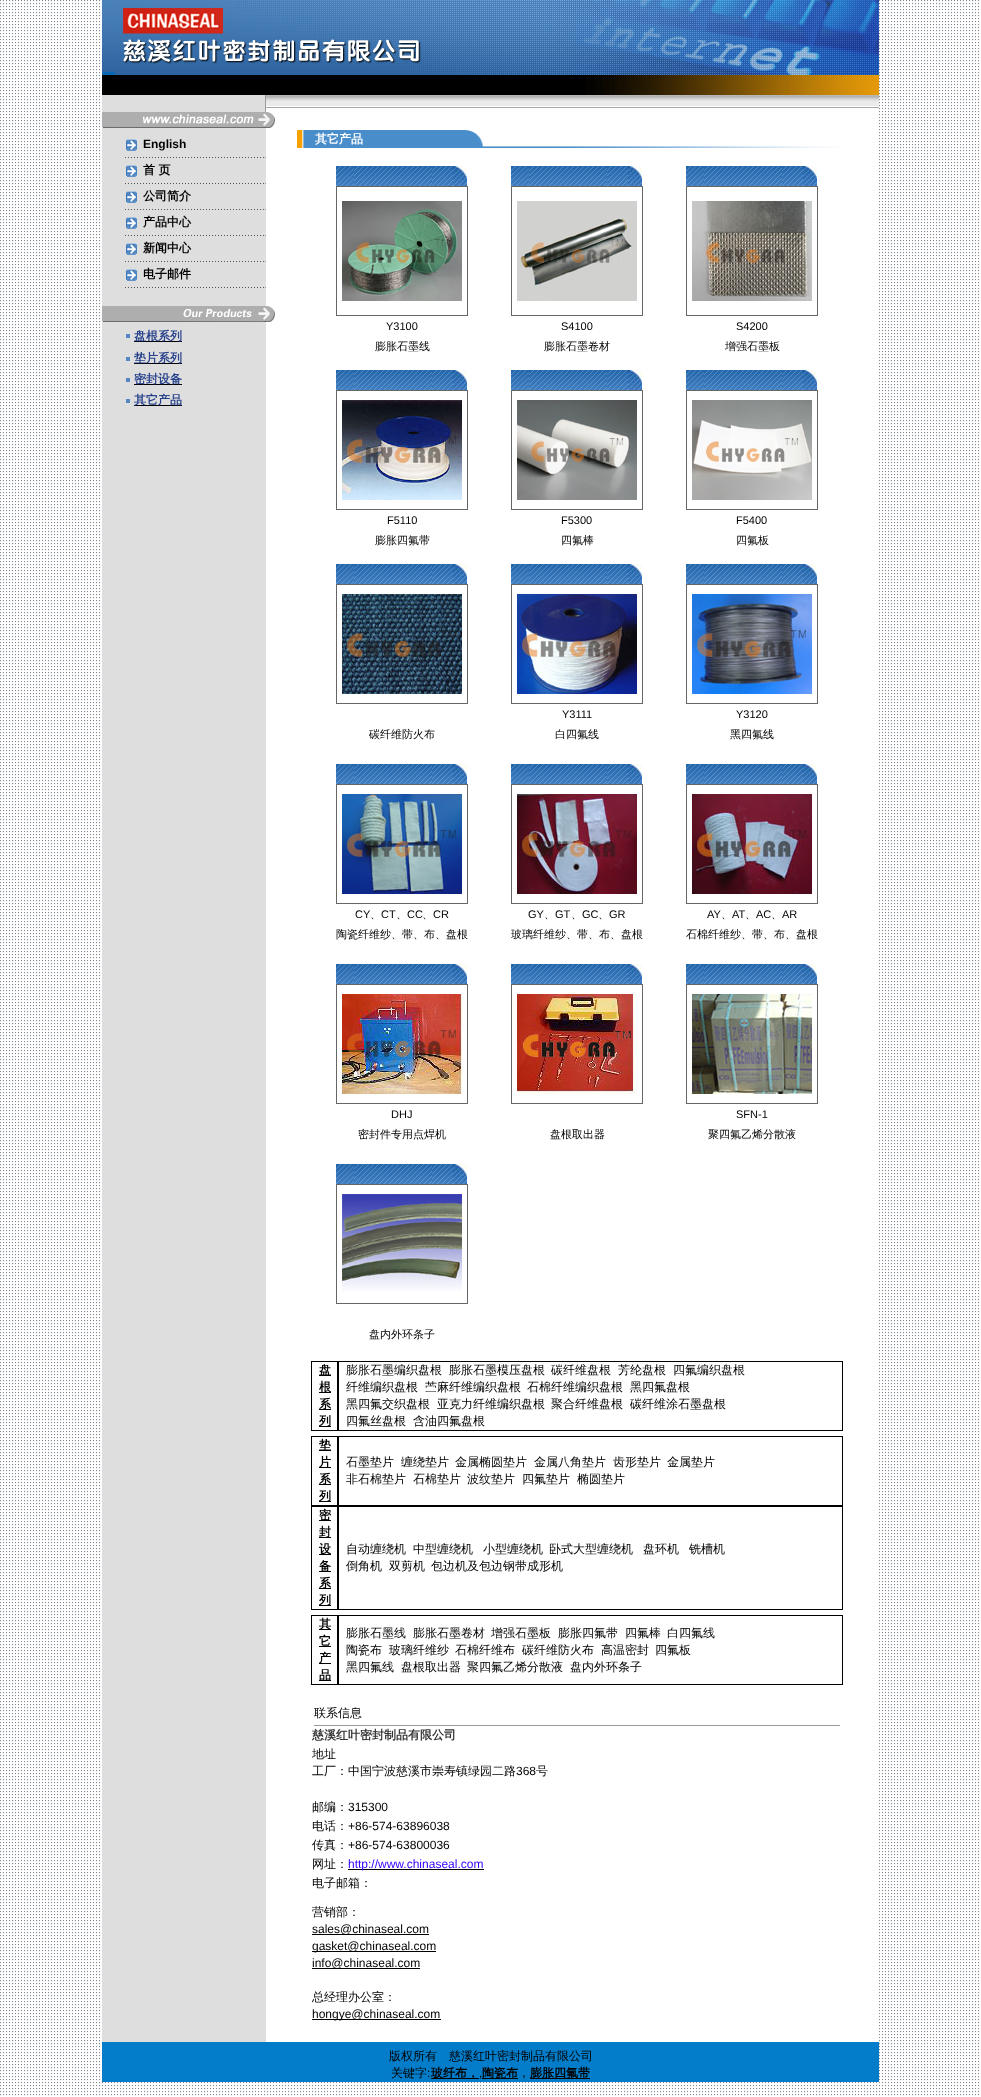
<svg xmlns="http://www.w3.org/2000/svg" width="981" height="2097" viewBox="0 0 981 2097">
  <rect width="100%" height="100%" fill="#ffffff"/>
  <image x="0" y="0" width="980" height="2096" href="img1.png"/>
  <image x="102" y="0" width="473" height="75" href="img2.png"/>
  <image x="575" y="0" width="304" height="75" href="img3.png"/>
  <image x="102" y="75" width="777" height="20" href="img4.png"/>
  <image x="102" y="95" width="777" height="17" href="img5.png"/>
  <rect x="267" y="112" width="611" height="1930" fill="#ffffff"/>
  <rect x="102" y="128" width="164" height="1914" fill="#dedede"/>
  <image x="102" y="112" width="173" height="16" href="img6.png"/>
  <image x="126" y="139" width="11" height="12" href="img7.png"/>
  <text x="143" y="148" font-family="Liberation Sans" font-size="12" font-weight="bold" fill="#000000">English</text>
  <image x="125" y="157" width="141" height="1" href="img8.png"/>
  <image x="126" y="165" width="11" height="12" href="img7.png"/>
  <text x="143" y="174" font-family="WenQuanYi Zen Hei" font-size="12" font-weight="bold" fill="#000000">首 页</text>
  <image x="125" y="183" width="141" height="1" href="img8.png"/>
  <image x="126" y="191" width="11" height="12" href="img7.png"/>
  <text x="143" y="200" font-family="WenQuanYi Zen Hei" font-size="12" font-weight="bold" fill="#000000">公司简介</text>
  <image x="125" y="209" width="141" height="1" href="img8.png"/>
  <image x="126" y="217" width="11" height="12" href="img7.png"/>
  <text x="143" y="226" font-family="WenQuanYi Zen Hei" font-size="12" font-weight="bold" fill="#000000">产品中心</text>
  <image x="125" y="235" width="141" height="1" href="img8.png"/>
  <image x="126" y="243" width="11" height="12" href="img7.png"/>
  <text x="143" y="252" font-family="WenQuanYi Zen Hei" font-size="12" font-weight="bold" fill="#000000">新闻中心</text>
  <image x="125" y="261" width="141" height="1" href="img8.png"/>
  <image x="126" y="269" width="11" height="12" href="img7.png"/>
  <text x="143" y="278" font-family="WenQuanYi Zen Hei" font-size="12" font-weight="bold" fill="#000000">电子邮件</text>
  <image x="125" y="287" width="141" height="1" href="img8.png"/>
  <image x="102" y="306" width="173" height="16" href="img9.png"/>
  <rect x="126" y="334" width="4" height="4" fill="#5287c3"/>
  <rect x="134" y="341" width="48" height="1" fill="#000000"/>
  <text x="134" y="340" font-family="WenQuanYi Zen Hei" font-size="12" font-weight="bold" fill="#28428c">盘根系列</text>
  <rect x="126" y="357" width="4" height="4" fill="#5287c3"/>
  <rect x="134" y="363" width="48" height="1" fill="#000000"/>
  <text x="134" y="362" font-family="WenQuanYi Zen Hei" font-size="12" font-weight="bold" fill="#28428c">垫片系列</text>
  <rect x="126" y="378" width="4" height="4" fill="#5287c3"/>
  <rect x="134" y="384" width="48" height="1" fill="#000000"/>
  <text x="134" y="383" font-family="WenQuanYi Zen Hei" font-size="12" font-weight="bold" fill="#28428c">密封设备</text>
  <rect x="126" y="399" width="4" height="4" fill="#5287c3"/>
  <rect x="134" y="405" width="48" height="1" fill="#000000"/>
  <text x="134" y="404" font-family="WenQuanYi Zen Hei" font-size="12" font-weight="bold" fill="#28428c">其它产品</text>
  <image x="297" y="130" width="18" height="18" href="img10.png"/>
  <rect x="315" y="130" width="147" height="18" fill="#498ecb"/>
  <text x="315" y="143" font-family="WenQuanYi Zen Hei" font-size="12" font-weight="bold" fill="#ffffff">其它产品</text>
  <image x="462" y="130" width="377" height="18" href="img11.png"/>
  <image x="336" y="166" width="18" height="20" href="img12.png"/>
  <image x="354" y="166" width="99" height="20" href="img13.png"/>
  <image x="453" y="166" width="14" height="20" href="img14.png"/>
  <rect x="336.5" y="186.5" width="131" height="129" fill="none" stroke="#666666"/>
  <image x="342" y="201" width="120" height="100" href="img15.png"/>
  <image x="511" y="166" width="18" height="20" href="img12.png"/>
  <image x="529" y="166" width="99" height="20" href="img13.png"/>
  <image x="628" y="166" width="14" height="20" href="img14.png"/>
  <rect x="511.5" y="186.5" width="131" height="129" fill="none" stroke="#666666"/>
  <image x="517" y="201" width="120" height="100" href="img16.png"/>
  <image x="686" y="166" width="18" height="20" href="img12.png"/>
  <image x="704" y="166" width="99" height="20" href="img13.png"/>
  <image x="803" y="166" width="14" height="20" href="img14.png"/>
  <rect x="686.5" y="186.5" width="131" height="129" fill="none" stroke="#666666"/>
  <image x="692" y="201" width="120" height="100" href="img17.png"/>
  <text x="386" y="330" font-family="Liberation Sans" font-size="11" fill="#000000">Y3100</text>
  <text x="561" y="330" font-family="Liberation Sans" font-size="11" fill="#000000">S4100</text>
  <text x="736" y="330" font-family="Liberation Sans" font-size="11" fill="#000000">S4200</text>
  <text x="375" y="350" font-family="WenQuanYi Zen Hei" font-size="11" font-weight="500" fill="#000000">膨胀石墨线</text>
  <text x="544" y="350" font-family="WenQuanYi Zen Hei" font-size="11" font-weight="500" fill="#000000">膨胀石墨卷材</text>
  <text x="725" y="350" font-family="WenQuanYi Zen Hei" font-size="11" font-weight="500" fill="#000000">增强石墨板</text>
  <image x="336" y="370" width="18" height="20" href="img12.png"/>
  <image x="354" y="370" width="99" height="20" href="img13.png"/>
  <image x="453" y="370" width="14" height="20" href="img14.png"/>
  <rect x="336.5" y="390.5" width="131" height="119" fill="none" stroke="#666666"/>
  <image x="342" y="400" width="120" height="100" href="img18.png"/>
  <image x="511" y="370" width="18" height="20" href="img12.png"/>
  <image x="529" y="370" width="99" height="20" href="img13.png"/>
  <image x="628" y="370" width="14" height="20" href="img14.png"/>
  <rect x="511.5" y="390.5" width="131" height="119" fill="none" stroke="#666666"/>
  <image x="517" y="400" width="120" height="100" href="img19.png"/>
  <image x="686" y="370" width="18" height="20" href="img12.png"/>
  <image x="704" y="370" width="99" height="20" href="img13.png"/>
  <image x="803" y="370" width="14" height="20" href="img14.png"/>
  <rect x="686.5" y="390.5" width="131" height="119" fill="none" stroke="#666666"/>
  <image x="692" y="400" width="120" height="100" href="img20.png"/>
  <text x="387" y="524" font-family="Liberation Sans" font-size="11" fill="#000000">F5110</text>
  <text x="561" y="524" font-family="Liberation Sans" font-size="11" fill="#000000">F5300</text>
  <text x="736" y="524" font-family="Liberation Sans" font-size="11" fill="#000000">F5400</text>
  <text x="375" y="544" font-family="WenQuanYi Zen Hei" font-size="11" font-weight="500" fill="#000000">膨胀四氟带</text>
  <text x="561" y="544" font-family="WenQuanYi Zen Hei" font-size="11" font-weight="500" fill="#000000">四氟棒</text>
  <text x="736" y="544" font-family="WenQuanYi Zen Hei" font-size="11" font-weight="500" fill="#000000">四氟板</text>
  <image x="336" y="564" width="18" height="20" href="img12.png"/>
  <image x="354" y="564" width="99" height="20" href="img13.png"/>
  <image x="453" y="564" width="14" height="20" href="img14.png"/>
  <rect x="336.5" y="584.5" width="131" height="119" fill="none" stroke="#666666"/>
  <image x="342" y="594" width="120" height="100" href="img21.png"/>
  <image x="511" y="564" width="18" height="20" href="img12.png"/>
  <image x="529" y="564" width="99" height="20" href="img13.png"/>
  <image x="628" y="564" width="14" height="20" href="img14.png"/>
  <rect x="511.5" y="584.5" width="131" height="119" fill="none" stroke="#666666"/>
  <image x="517" y="594" width="120" height="100" href="img22.png"/>
  <image x="686" y="564" width="18" height="20" href="img12.png"/>
  <image x="704" y="564" width="99" height="20" href="img13.png"/>
  <image x="803" y="564" width="14" height="20" href="img14.png"/>
  <rect x="686.5" y="584.5" width="131" height="119" fill="none" stroke="#666666"/>
  <image x="692" y="594" width="120" height="100" href="img23.png"/>
  <text x="562" y="718" font-family="Liberation Sans" font-size="11" fill="#000000">Y3111</text>
  <text x="736" y="718" font-family="Liberation Sans" font-size="11" fill="#000000">Y3120</text>
  <text x="369" y="738" font-family="WenQuanYi Zen Hei" font-size="11" font-weight="500" fill="#000000">碳纤维防火布</text>
  <text x="555" y="738" font-family="WenQuanYi Zen Hei" font-size="11" font-weight="500" fill="#000000">白四氟线</text>
  <text x="730" y="738" font-family="WenQuanYi Zen Hei" font-size="11" font-weight="500" fill="#000000">黑四氟线</text>
  <image x="336" y="764" width="18" height="20" href="img12.png"/>
  <image x="354" y="764" width="99" height="20" href="img13.png"/>
  <image x="453" y="764" width="14" height="20" href="img14.png"/>
  <rect x="336.5" y="784.5" width="131" height="119" fill="none" stroke="#666666"/>
  <image x="342" y="794" width="120" height="100" href="img24.png"/>
  <image x="511" y="764" width="18" height="20" href="img12.png"/>
  <image x="529" y="764" width="99" height="20" href="img13.png"/>
  <image x="628" y="764" width="14" height="20" href="img14.png"/>
  <rect x="511.5" y="784.5" width="131" height="119" fill="none" stroke="#666666"/>
  <image x="517" y="794" width="120" height="100" href="img25.png"/>
  <image x="686" y="764" width="18" height="20" href="img12.png"/>
  <image x="704" y="764" width="99" height="20" href="img13.png"/>
  <image x="803" y="764" width="14" height="20" href="img14.png"/>
  <rect x="686.5" y="784.5" width="131" height="119" fill="none" stroke="#666666"/>
  <image x="692" y="794" width="120" height="100" href="img26.png"/>
  <text x="355" y="918" font-family="Liberation Sans" font-size="11" fill="#000000">CY</text>
  <text x="370" y="918" font-family="WenQuanYi Zen Hei" font-size="11" font-weight="500" fill="#000000">、</text>
  <text x="381" y="918" font-family="Liberation Sans" font-size="11" fill="#000000">CT</text>
  <text x="396" y="918" font-family="WenQuanYi Zen Hei" font-size="11" font-weight="500" fill="#000000">、</text>
  <text x="407" y="918" font-family="Liberation Sans" font-size="11" fill="#000000">CC</text>
  <text x="422" y="918" font-family="WenQuanYi Zen Hei" font-size="11" font-weight="500" fill="#000000">、</text>
  <text x="433" y="918" font-family="Liberation Sans" font-size="11" fill="#000000">CR</text>
  <text x="528" y="918" font-family="Liberation Sans" font-size="11" fill="#000000">GY</text>
  <text x="544" y="918" font-family="WenQuanYi Zen Hei" font-size="11" font-weight="500" fill="#000000">、</text>
  <text x="555" y="918" font-family="Liberation Sans" font-size="11" fill="#000000">GT</text>
  <text x="571" y="918" font-family="WenQuanYi Zen Hei" font-size="11" font-weight="500" fill="#000000">、</text>
  <text x="582" y="918" font-family="Liberation Sans" font-size="11" fill="#000000">GC</text>
  <text x="598" y="918" font-family="WenQuanYi Zen Hei" font-size="11" font-weight="500" fill="#000000">、</text>
  <text x="609" y="918" font-family="Liberation Sans" font-size="11" fill="#000000">GR</text>
  <text x="707" y="918" font-family="Liberation Sans" font-size="11" fill="#000000">AY</text>
  <text x="732" y="918" font-family="Liberation Sans" font-size="11" fill="#000000">AT</text>
  <text x="756" y="918" font-family="Liberation Sans" font-size="11" fill="#000000">AC</text>
  <text x="782" y="918" font-family="Liberation Sans" font-size="11" fill="#000000">AR</text>
  <text x="721" y="918" font-family="WenQuanYi Zen Hei" font-size="11" font-weight="500" fill="#000000">、</text>
  <text x="745" y="918" font-family="WenQuanYi Zen Hei" font-size="11" font-weight="500" fill="#000000">、</text>
  <text x="771" y="918" font-family="WenQuanYi Zen Hei" font-size="11" font-weight="500" fill="#000000">、</text>
  <text x="336" y="938" font-family="WenQuanYi Zen Hei" font-size="11" font-weight="500" fill="#000000">陶瓷纤维纱、带、布、盘根</text>
  <text x="511" y="938" font-family="WenQuanYi Zen Hei" font-size="11" font-weight="500" fill="#000000">玻璃纤维纱、带、布、盘根</text>
  <text x="686" y="938" font-family="WenQuanYi Zen Hei" font-size="11" font-weight="500" fill="#000000">石棉纤维纱、带、布、盘根</text>
  <image x="336" y="964" width="18" height="20" href="img12.png"/>
  <image x="354" y="964" width="99" height="20" href="img13.png"/>
  <image x="453" y="964" width="14" height="20" href="img14.png"/>
  <rect x="336.5" y="984.5" width="131" height="119" fill="none" stroke="#666666"/>
  <image x="342" y="994" width="120" height="100" href="img27.png"/>
  <image x="511" y="964" width="18" height="20" href="img12.png"/>
  <image x="529" y="964" width="99" height="20" href="img13.png"/>
  <image x="628" y="964" width="14" height="20" href="img14.png"/>
  <rect x="511.5" y="984.5" width="131" height="119" fill="none" stroke="#666666"/>
  <image x="517" y="994" width="120" height="100" href="img28.png"/>
  <image x="686" y="964" width="18" height="20" href="img12.png"/>
  <image x="704" y="964" width="99" height="20" href="img13.png"/>
  <image x="803" y="964" width="14" height="20" href="img14.png"/>
  <rect x="686.5" y="984.5" width="131" height="119" fill="none" stroke="#666666"/>
  <image x="692" y="994" width="120" height="100" href="img29.png"/>
  <text x="391" y="1118" font-family="Liberation Sans" font-size="11" fill="#000000">DHJ</text>
  <text x="736" y="1118" font-family="Liberation Sans" font-size="11" fill="#000000">SFN-1</text>
  <text x="358" y="1138" font-family="WenQuanYi Zen Hei" font-size="11" font-weight="500" fill="#000000">密封件专用点焊机</text>
  <text x="550" y="1138" font-family="WenQuanYi Zen Hei" font-size="11" font-weight="500" fill="#000000">盘根取出器</text>
  <text x="708" y="1138" font-family="WenQuanYi Zen Hei" font-size="11" font-weight="500" fill="#000000">聚四氟乙烯分散液</text>
  <image x="336" y="1164" width="18" height="20" href="img12.png"/>
  <image x="354" y="1164" width="99" height="20" href="img13.png"/>
  <image x="453" y="1164" width="14" height="20" href="img14.png"/>
  <rect x="336.5" y="1184.5" width="131" height="119" fill="none" stroke="#666666"/>
  <image x="342" y="1194" width="120" height="97" href="img30.png"/>
  <text x="369" y="1338" font-family="WenQuanYi Zen Hei" font-size="11" font-weight="500" fill="#000000">盘内外环条子</text>
  <rect x="311.5" y="1361.5" width="26" height="69" fill="none" stroke="#000000"/>
  <rect x="319" y="1375" width="12" height="1" fill="#000000"/>
  <text x="319" y="1374" font-family="WenQuanYi Zen Hei" font-size="12" font-weight="bold" fill="#000000">盘</text>
  <rect x="319" y="1392" width="12" height="1" fill="#000000"/>
  <text x="319" y="1391" font-family="WenQuanYi Zen Hei" font-size="12" font-weight="bold" fill="#000000">根</text>
  <rect x="319" y="1409" width="12" height="1" fill="#000000"/>
  <text x="319" y="1408" font-family="WenQuanYi Zen Hei" font-size="12" font-weight="bold" fill="#000000">系</text>
  <rect x="319" y="1426" width="12" height="1" fill="#000000"/>
  <text x="319" y="1425" font-family="WenQuanYi Zen Hei" font-size="12" font-weight="bold" fill="#000000">列</text>
  <rect x="338.5" y="1361.5" width="504" height="69" fill="none" stroke="#000000"/>
  <text x="346" y="1374" font-family="WenQuanYi Zen Hei" font-size="12" font-weight="500" fill="#000000">膨胀石墨编织盘根</text>
  <text x="449" y="1374" font-family="WenQuanYi Zen Hei" font-size="12" font-weight="500" fill="#000000">膨胀石墨模压盘根</text>
  <text x="551" y="1374" font-family="WenQuanYi Zen Hei" font-size="12" font-weight="500" fill="#000000">碳纤维盘根</text>
  <text x="618" y="1374" font-family="WenQuanYi Zen Hei" font-size="12" font-weight="500" fill="#000000">芳纶盘根</text>
  <text x="673" y="1374" font-family="WenQuanYi Zen Hei" font-size="12" font-weight="500" fill="#000000">四氟编织盘根</text>
  <text x="346" y="1391" font-family="WenQuanYi Zen Hei" font-size="12" font-weight="500" fill="#000000">纤维编织盘根</text>
  <text x="425" y="1391" font-family="WenQuanYi Zen Hei" font-size="12" font-weight="500" fill="#000000">苎麻纤维编织盘根</text>
  <text x="527" y="1391" font-family="WenQuanYi Zen Hei" font-size="12" font-weight="500" fill="#000000">石棉纤维编织盘根</text>
  <text x="630" y="1391" font-family="WenQuanYi Zen Hei" font-size="12" font-weight="500" fill="#000000">黑四氟盘根</text>
  <text x="346" y="1408" font-family="WenQuanYi Zen Hei" font-size="12" font-weight="500" fill="#000000">黑四氟交织盘根</text>
  <text x="437" y="1408" font-family="WenQuanYi Zen Hei" font-size="12" font-weight="500" fill="#000000">亚克力纤维编织盘根</text>
  <text x="551" y="1408" font-family="WenQuanYi Zen Hei" font-size="12" font-weight="500" fill="#000000">聚合纤维盘根</text>
  <text x="630" y="1408" font-family="WenQuanYi Zen Hei" font-size="12" font-weight="500" fill="#000000">碳纤维涂石墨盘根</text>
  <text x="346" y="1425" font-family="WenQuanYi Zen Hei" font-size="12" font-weight="500" fill="#000000">四氟丝盘根</text>
  <text x="413" y="1425" font-family="WenQuanYi Zen Hei" font-size="12" font-weight="500" fill="#000000">含油四氟盘根</text>
  <rect x="311.5" y="1436.5" width="26" height="69" fill="none" stroke="#000000"/>
  <rect x="319" y="1450" width="12" height="1" fill="#000000"/>
  <text x="319" y="1449" font-family="WenQuanYi Zen Hei" font-size="12" font-weight="bold" fill="#000000">垫</text>
  <rect x="319" y="1467" width="12" height="1" fill="#000000"/>
  <text x="319" y="1466" font-family="WenQuanYi Zen Hei" font-size="12" font-weight="bold" fill="#000000">片</text>
  <rect x="319" y="1484" width="12" height="1" fill="#000000"/>
  <text x="319" y="1483" font-family="WenQuanYi Zen Hei" font-size="12" font-weight="bold" fill="#000000">系</text>
  <rect x="319" y="1501" width="12" height="1" fill="#000000"/>
  <text x="319" y="1500" font-family="WenQuanYi Zen Hei" font-size="12" font-weight="bold" fill="#000000">列</text>
  <rect x="338.5" y="1436.5" width="504" height="69" fill="none" stroke="#000000"/>
  <text x="346" y="1466" font-family="WenQuanYi Zen Hei" font-size="12" font-weight="500" fill="#000000">石墨垫片</text>
  <text x="401" y="1466" font-family="WenQuanYi Zen Hei" font-size="12" font-weight="500" fill="#000000">缠绕垫片</text>
  <text x="455" y="1466" font-family="WenQuanYi Zen Hei" font-size="12" font-weight="500" fill="#000000">金属椭圆垫片</text>
  <text x="534" y="1466" font-family="WenQuanYi Zen Hei" font-size="12" font-weight="500" fill="#000000">金属八角垫片</text>
  <text x="613" y="1466" font-family="WenQuanYi Zen Hei" font-size="12" font-weight="500" fill="#000000">齿形垫片</text>
  <text x="667" y="1466" font-family="WenQuanYi Zen Hei" font-size="12" font-weight="500" fill="#000000">金属垫片</text>
  <text x="346" y="1483" font-family="WenQuanYi Zen Hei" font-size="12" font-weight="500" fill="#000000">非石棉垫片</text>
  <text x="413" y="1483" font-family="WenQuanYi Zen Hei" font-size="12" font-weight="500" fill="#000000">石棉垫片</text>
  <text x="467" y="1483" font-family="WenQuanYi Zen Hei" font-size="12" font-weight="500" fill="#000000">波纹垫片</text>
  <text x="522" y="1483" font-family="WenQuanYi Zen Hei" font-size="12" font-weight="500" fill="#000000">四氟垫片</text>
  <text x="577" y="1483" font-family="WenQuanYi Zen Hei" font-size="12" font-weight="500" fill="#000000">椭圆垫片</text>
  <rect x="311.5" y="1506.5" width="26" height="103" fill="none" stroke="#000000"/>
  <rect x="319" y="1520" width="12" height="1" fill="#000000"/>
  <text x="319" y="1519" font-family="WenQuanYi Zen Hei" font-size="12" font-weight="bold" fill="#000000">密</text>
  <rect x="319" y="1537" width="12" height="1" fill="#000000"/>
  <text x="319" y="1536" font-family="WenQuanYi Zen Hei" font-size="12" font-weight="bold" fill="#000000">封</text>
  <rect x="319" y="1554" width="12" height="1" fill="#000000"/>
  <text x="319" y="1553" font-family="WenQuanYi Zen Hei" font-size="12" font-weight="bold" fill="#000000">设</text>
  <rect x="319" y="1571" width="12" height="1" fill="#000000"/>
  <text x="319" y="1570" font-family="WenQuanYi Zen Hei" font-size="12" font-weight="bold" fill="#000000">备</text>
  <rect x="319" y="1588" width="12" height="1" fill="#000000"/>
  <text x="319" y="1587" font-family="WenQuanYi Zen Hei" font-size="12" font-weight="bold" fill="#000000">系</text>
  <rect x="319" y="1605" width="12" height="1" fill="#000000"/>
  <text x="319" y="1604" font-family="WenQuanYi Zen Hei" font-size="12" font-weight="bold" fill="#000000">列</text>
  <rect x="338.5" y="1506.5" width="504" height="103" fill="none" stroke="#000000"/>
  <text x="346" y="1553" font-family="WenQuanYi Zen Hei" font-size="12" font-weight="500" fill="#000000">自动缠绕机</text>
  <text x="413" y="1553" font-family="WenQuanYi Zen Hei" font-size="12" font-weight="500" fill="#000000">中型缠绕机</text>
  <text x="483" y="1553" font-family="WenQuanYi Zen Hei" font-size="12" font-weight="500" fill="#000000">小型缠绕机</text>
  <text x="549" y="1553" font-family="WenQuanYi Zen Hei" font-size="12" font-weight="500" fill="#000000">卧式大型缠绕机</text>
  <text x="643" y="1553" font-family="WenQuanYi Zen Hei" font-size="12" font-weight="500" fill="#000000">盘环机</text>
  <text x="689" y="1553" font-family="WenQuanYi Zen Hei" font-size="12" font-weight="500" fill="#000000">铣槽机</text>
  <text x="346" y="1570" font-family="WenQuanYi Zen Hei" font-size="12" font-weight="500" fill="#000000">倒角机</text>
  <text x="389" y="1570" font-family="WenQuanYi Zen Hei" font-size="12" font-weight="500" fill="#000000">双剪机</text>
  <text x="431" y="1570" font-family="WenQuanYi Zen Hei" font-size="12" font-weight="500" fill="#000000">包边机及包边钢带成形机</text>
  <rect x="311.5" y="1615.5" width="26" height="69" fill="none" stroke="#000000"/>
  <rect x="319" y="1629" width="12" height="1" fill="#000000"/>
  <text x="319" y="1628" font-family="WenQuanYi Zen Hei" font-size="12" font-weight="bold" fill="#000000">其</text>
  <text x="319" y="1645" font-family="WenQuanYi Zen Hei" font-size="12" font-weight="bold" fill="#000000">它</text>
  <rect x="319" y="1646" width="12" height="1" fill="#000000"/>
  <rect x="319" y="1663" width="12" height="1" fill="#000000"/>
  <text x="319" y="1662" font-family="WenQuanYi Zen Hei" font-size="12" font-weight="bold" fill="#000000">产</text>
  <rect x="319" y="1680" width="12" height="1" fill="#000000"/>
  <text x="319" y="1679" font-family="WenQuanYi Zen Hei" font-size="12" font-weight="bold" fill="#000000">品</text>
  <rect x="338.5" y="1615.5" width="504" height="69" fill="none" stroke="#000000"/>
  <text x="346" y="1637" font-family="WenQuanYi Zen Hei" font-size="12" font-weight="500" fill="#000000">膨胀石墨线</text>
  <text x="413" y="1637" font-family="WenQuanYi Zen Hei" font-size="12" font-weight="500" fill="#000000">膨胀石墨卷材</text>
  <text x="491" y="1637" font-family="WenQuanYi Zen Hei" font-size="12" font-weight="500" fill="#000000">增强石墨板</text>
  <text x="558" y="1637" font-family="WenQuanYi Zen Hei" font-size="12" font-weight="500" fill="#000000">膨胀四氟带</text>
  <text x="625" y="1637" font-family="WenQuanYi Zen Hei" font-size="12" font-weight="500" fill="#000000">四氟棒</text>
  <text x="667" y="1637" font-family="WenQuanYi Zen Hei" font-size="12" font-weight="500" fill="#000000">白四氟线</text>
  <text x="346" y="1654" font-family="WenQuanYi Zen Hei" font-size="12" font-weight="500" fill="#000000">陶瓷布</text>
  <text x="389" y="1654" font-family="WenQuanYi Zen Hei" font-size="12" font-weight="500" fill="#000000">玻璃纤维纱</text>
  <text x="455" y="1654" font-family="WenQuanYi Zen Hei" font-size="12" font-weight="500" fill="#000000">石棉纤维布</text>
  <text x="522" y="1654" font-family="WenQuanYi Zen Hei" font-size="12" font-weight="500" fill="#000000">碳纤维防火布</text>
  <text x="601" y="1654" font-family="WenQuanYi Zen Hei" font-size="12" font-weight="500" fill="#000000">高温密封</text>
  <text x="655" y="1654" font-family="WenQuanYi Zen Hei" font-size="12" font-weight="500" fill="#000000">四氟板</text>
  <text x="346" y="1671" font-family="WenQuanYi Zen Hei" font-size="12" font-weight="500" fill="#000000">黑四氟线</text>
  <text x="401" y="1671" font-family="WenQuanYi Zen Hei" font-size="12" font-weight="500" fill="#000000">盘根取出器</text>
  <text x="467" y="1671" font-family="WenQuanYi Zen Hei" font-size="12" font-weight="500" fill="#000000">聚四氟乙烯分散液</text>
  <text x="570" y="1671" font-family="WenQuanYi Zen Hei" font-size="12" font-weight="500" fill="#000000">盘内外环条子</text>
  <text x="314" y="1717" font-family="WenQuanYi Zen Hei" font-size="12" font-weight="500" fill="#000000">联系信息</text>
  <rect x="314" y="1725" width="526" height="1" fill="#999999"/>
  <text x="312" y="1739" font-family="WenQuanYi Zen Hei" font-size="12" font-weight="bold" fill="#333333">慈溪红叶密封制品有限公司</text>
  <text x="312" y="1758" font-family="WenQuanYi Zen Hei" font-size="12" font-weight="500" fill="#000000">地址</text>
  <text x="312" y="1775" font-family="WenQuanYi Zen Hei" font-size="12" font-weight="500" fill="#000000">工厂：中国宁波慈溪市崇寿镇绿园二路</text>
  <text x="516" y="1775" font-family="Liberation Sans" font-size="12" fill="#000000">368</text>
  <text x="536" y="1775" font-family="WenQuanYi Zen Hei" font-size="12" font-weight="500" fill="#000000">号</text>
  <text x="312" y="1811" font-family="WenQuanYi Zen Hei" font-size="12" font-weight="500" fill="#000000">邮编：</text>
  <text x="348" y="1811" font-family="Liberation Sans" font-size="12" fill="#000000">315300</text>
  <text x="312" y="1830" font-family="WenQuanYi Zen Hei" font-size="12" font-weight="500" fill="#000000">电话：</text>
  <text x="348" y="1830" font-family="Liberation Sans" font-size="12" fill="#000000">+86-574-63896038</text>
  <text x="312" y="1849" font-family="WenQuanYi Zen Hei" font-size="12" font-weight="500" fill="#000000">传真：</text>
  <text x="348" y="1849" font-family="Liberation Sans" font-size="12" fill="#000000">+86-574-63800036</text>
  <text x="312" y="1868" font-family="WenQuanYi Zen Hei" font-size="12" font-weight="500" fill="#000000">网址：</text>
  <rect x="348" y="1869" width="136" height="1" fill="#000000"/>
  <text x="348" y="1868" font-family="Liberation Sans" font-size="12" fill="#3300ff">http://www.chinaseal.com</text>
  <text x="312" y="1887" font-family="WenQuanYi Zen Hei" font-size="12" font-weight="500" fill="#000000">电子邮箱：</text>
  <text x="312" y="1916" font-family="WenQuanYi Zen Hei" font-size="12" font-weight="500" fill="#000000">营销部：</text>
  <rect x="312" y="1934" width="117" height="1" fill="#000000"/>
  <text x="312" y="1933" font-family="Liberation Sans" font-size="12" fill="#000000">sales@chinaseal.com</text>
  <rect x="312" y="1951" width="124" height="1" fill="#000000"/>
  <text x="312" y="1950" font-family="Liberation Sans" font-size="12" fill="#000000">gasket@chinaseal.com</text>
  <rect x="312" y="1968" width="108" height="1" fill="#000000"/>
  <text x="312" y="1967" font-family="Liberation Sans" font-size="12" fill="#000000">info@chinaseal.com</text>
  <text x="312" y="2001" font-family="WenQuanYi Zen Hei" font-size="12" font-weight="500" fill="#000000">总经理办公室：</text>
  <rect x="312" y="2019" width="129" height="1" fill="#000000"/>
  <text x="312" y="2018" font-family="Liberation Sans" font-size="12" fill="#000000">hongye@chinaseal.com</text>
  <rect x="102" y="2042" width="777" height="40" fill="#037dc9"/>
  <text x="389" y="2060" font-family="WenQuanYi Zen Hei" font-size="12" font-weight="500" fill="#000000">版权所有　慈溪红叶密封制品有限公司</text>
  <text x="391" y="2077" font-family="WenQuanYi Zen Hei" font-size="12" font-weight="500" fill="#000000">关键字</text>
  <text x="427" y="2077" font-family="Liberation Sans" font-size="12" fill="#000000">:</text>
  <rect x="431" y="2078" width="48" height="1" fill="#000000"/>
  <text x="431" y="2077" font-family="WenQuanYi Zen Hei" font-size="12" font-weight="bold" fill="#000000">玻纤布，</text>
  <text x="479" y="2077" font-family="Liberation Sans" font-size="12" fill="#000000">,</text>
  <rect x="482" y="2078" width="36" height="1" fill="#000000"/>
  <text x="482" y="2077" font-family="WenQuanYi Zen Hei" font-size="12" font-weight="bold" fill="#000000">陶瓷布</text>
  <text x="518" y="2077" font-family="WenQuanYi Zen Hei" font-size="12" font-weight="500" fill="#000000">，</text>
  <rect x="530" y="2078" width="60" height="1" fill="#000000"/>
  <text x="530" y="2077" font-family="WenQuanYi Zen Hei" font-size="12" font-weight="bold" fill="#000000">膨胀四氟带</text>
</svg>
